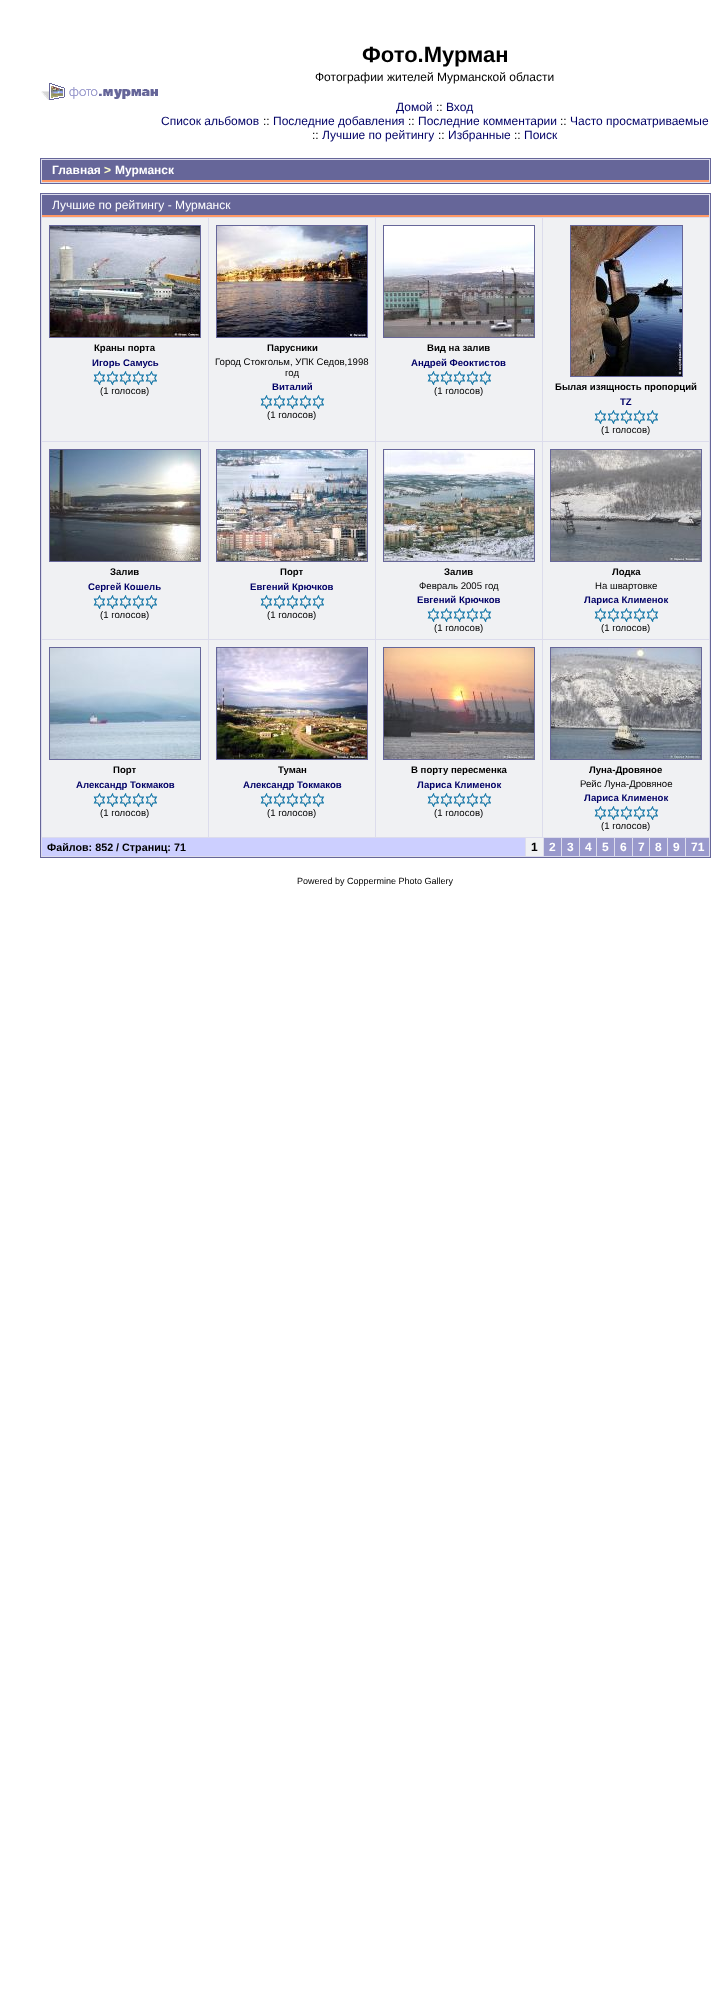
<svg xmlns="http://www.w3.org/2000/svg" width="728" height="2000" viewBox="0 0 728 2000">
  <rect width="100%" height="100%" fill="#ffffff"/>
  <image x="41" y="83" width="117" height="17" href="img1.png"/>
  <text x="362" y="62" font-family="Liberation Sans" font-size="22" font-weight="bold" fill="#000000">Фото.Мурман</text>
  <text x="315" y="81" font-family="Liberation Sans" font-size="12" fill="#000000">Фотографии жителей Мурманской области</text>
  <text x="396" y="111" font-family="Liberation Sans" font-size="12" fill="#000066">Домой</text>
  <text x="436" y="111" font-family="Liberation Sans" font-size="12" fill="#000000">::</text>
  <text x="446" y="111" font-family="Liberation Sans" font-size="12" fill="#000066">Вход</text>
  <text x="161" y="125" font-family="Liberation Sans" font-size="12" fill="#000066">Список альбомов</text>
  <text x="263" y="125" font-family="Liberation Sans" font-size="12" fill="#000000">::</text>
  <text x="273" y="125" font-family="Liberation Sans" font-size="12" fill="#000066">Последние добавления</text>
  <text x="408" y="125" font-family="Liberation Sans" font-size="12" fill="#000000">::</text>
  <text x="418" y="125" font-family="Liberation Sans" font-size="12" fill="#000066">Последние комментарии</text>
  <text x="560" y="125" font-family="Liberation Sans" font-size="12" fill="#000000">::</text>
  <text x="570" y="125" font-family="Liberation Sans" font-size="12" fill="#000066">Часто просматриваемые</text>
  <text x="312" y="139" font-family="Liberation Sans" font-size="12" fill="#000000">::</text>
  <text x="322" y="139" font-family="Liberation Sans" font-size="12" fill="#000066">Лучшие по рейтингу</text>
  <text x="438" y="139" font-family="Liberation Sans" font-size="12" fill="#000000">::</text>
  <text x="448" y="139" font-family="Liberation Sans" font-size="12" fill="#000066">Избранные</text>
  <text x="514" y="139" font-family="Liberation Sans" font-size="12" fill="#000000">::</text>
  <text x="524" y="139" font-family="Liberation Sans" font-size="12" fill="#000066">Поиск</text>
  <rect x="40.5" y="158.5" width="670" height="25" fill="#dcdcec" stroke="#666699"/>
  <rect x="42" y="160" width="667" height="20" fill="#666699"/>
  <rect x="42" y="180" width="667" height="2" fill="#ff9966"/>
  <text x="52" y="174" font-family="Liberation Sans" font-size="12" font-weight="bold" fill="#ffffff">Главная</text>
  <text x="104" y="174" font-family="Liberation Sans" font-size="12" font-weight="bold" fill="#ffffcc">&gt;</text>
  <text x="115" y="174" font-family="Liberation Sans" font-size="12" font-weight="bold" fill="#ffffff">Мурманск</text>
  <rect x="40.5" y="193.5" width="670" height="664" fill="#dcdcec" stroke="#666699"/>
  <rect x="42" y="195" width="667" height="20" fill="#666699"/>
  <rect x="42" y="215" width="667" height="2" fill="#ff9966"/>
  <text x="52" y="209" font-family="Liberation Sans" font-size="12" fill="#ffffff">Лучшие по рейтингу - Мурманск</text>
  <rect x="42" y="218" width="166" height="223" fill="#f0f1f3"/>
  <rect x="49.5" y="225.5" width="151" height="112" fill="none" stroke="#666699"/>
  <image x="50" y="226" width="150" height="111" href="img2.png"/>
  <text x="94" y="351" font-family="Liberation Sans" font-size="9.6" font-weight="bold" fill="#000000">Краны порта</text>
  <text x="92" y="366" font-family="Liberation Sans" font-size="9.6" font-weight="bold" fill="#000066">Игорь Самусь</text>
  <image x="93" y="371" width="65" height="14" href="img3.png"/>
  <text x="100" y="394" font-family="Liberation Sans" font-size="9.6" fill="#000000">(1 голосов)</text>
  <rect x="209" y="218" width="166" height="223" fill="#f0f1f3"/>
  <rect x="216.5" y="225.5" width="151" height="112" fill="none" stroke="#666699"/>
  <image x="217" y="226" width="150" height="111" href="img4.png"/>
  <text x="267" y="351" font-family="Liberation Sans" font-size="9.6" font-weight="bold" fill="#000000">Парусники</text>
  <text x="215" y="365" font-family="Liberation Sans" font-size="9.6" fill="#000000">Город Стокгольм, УПК Седов,1998</text>
  <text x="285" y="376" font-family="Liberation Sans" font-size="9.6" fill="#000000">год</text>
  <text x="272" y="390" font-family="Liberation Sans" font-size="9.6" font-weight="bold" fill="#000066">Виталий</text>
  <image x="260" y="395" width="65" height="14" href="img3.png"/>
  <text x="267" y="418" font-family="Liberation Sans" font-size="9.6" fill="#000000">(1 голосов)</text>
  <rect x="376" y="218" width="166" height="223" fill="#f0f1f3"/>
  <rect x="383.5" y="225.5" width="151" height="112" fill="none" stroke="#666699"/>
  <image x="384" y="226" width="150" height="111" href="img5.png"/>
  <text x="427" y="351" font-family="Liberation Sans" font-size="9.6" font-weight="bold" fill="#000000">Вид на залив</text>
  <text x="411" y="366" font-family="Liberation Sans" font-size="9.6" font-weight="bold" fill="#000066">Андрей Феоктистов</text>
  <image x="427" y="371" width="65" height="14" href="img3.png"/>
  <text x="434" y="394" font-family="Liberation Sans" font-size="9.6" fill="#000000">(1 голосов)</text>
  <rect x="543" y="218" width="166" height="223" fill="#f0f1f3"/>
  <rect x="570.5" y="225.5" width="112" height="151" fill="none" stroke="#666699"/>
  <image x="571" y="226" width="111" height="150" href="img6.png"/>
  <text x="555" y="390" font-family="Liberation Sans" font-size="9.6" font-weight="bold" fill="#000000">Былая изящность пропорций</text>
  <text x="620" y="405" font-family="Liberation Sans" font-size="9.6" font-weight="bold" fill="#000066">TZ</text>
  <image x="594" y="410" width="65" height="14" href="img3.png"/>
  <text x="601" y="433" font-family="Liberation Sans" font-size="9.6" fill="#000000">(1 голосов)</text>
  <rect x="42" y="442" width="166" height="197" fill="#f0f1f3"/>
  <rect x="49.5" y="449.5" width="151" height="112" fill="none" stroke="#666699"/>
  <image x="50" y="450" width="150" height="111" href="img7.png"/>
  <text x="110" y="575" font-family="Liberation Sans" font-size="9.6" font-weight="bold" fill="#000000">Залив</text>
  <text x="88" y="590" font-family="Liberation Sans" font-size="9.6" font-weight="bold" fill="#000066">Сергей Кошель</text>
  <image x="93" y="595" width="65" height="14" href="img3.png"/>
  <text x="100" y="618" font-family="Liberation Sans" font-size="9.6" fill="#000000">(1 голосов)</text>
  <rect x="209" y="442" width="166" height="197" fill="#f0f1f3"/>
  <rect x="216.5" y="449.5" width="151" height="112" fill="none" stroke="#666699"/>
  <image x="217" y="450" width="150" height="111" href="img8.png"/>
  <text x="280" y="575" font-family="Liberation Sans" font-size="9.6" font-weight="bold" fill="#000000">Порт</text>
  <text x="250" y="590" font-family="Liberation Sans" font-size="9.6" font-weight="bold" fill="#000066">Евгений Крючков</text>
  <image x="260" y="595" width="65" height="14" href="img3.png"/>
  <text x="267" y="618" font-family="Liberation Sans" font-size="9.6" fill="#000000">(1 голосов)</text>
  <rect x="376" y="442" width="166" height="197" fill="#f0f1f3"/>
  <rect x="383.5" y="449.5" width="151" height="112" fill="none" stroke="#666699"/>
  <image x="384" y="450" width="150" height="111" href="img9.png"/>
  <text x="444" y="575" font-family="Liberation Sans" font-size="9.6" font-weight="bold" fill="#000000">Залив</text>
  <text x="419" y="589" font-family="Liberation Sans" font-size="9.6" fill="#000000">Февраль 2005 год</text>
  <text x="417" y="603" font-family="Liberation Sans" font-size="9.6" font-weight="bold" fill="#000066">Евгений Крючков</text>
  <image x="427" y="608" width="65" height="14" href="img3.png"/>
  <text x="434" y="631" font-family="Liberation Sans" font-size="9.6" fill="#000000">(1 голосов)</text>
  <rect x="543" y="442" width="166" height="197" fill="#f0f1f3"/>
  <rect x="550.5" y="449.5" width="151" height="112" fill="none" stroke="#666699"/>
  <image x="551" y="450" width="150" height="111" href="img10.png"/>
  <text x="612" y="575" font-family="Liberation Sans" font-size="9.6" font-weight="bold" fill="#000000">Лодка</text>
  <text x="595" y="589" font-family="Liberation Sans" font-size="9.6" fill="#000000">На швартовке</text>
  <text x="584" y="603" font-family="Liberation Sans" font-size="9.6" font-weight="bold" fill="#000066">Лариса Клименок</text>
  <image x="594" y="608" width="65" height="14" href="img3.png"/>
  <text x="601" y="631" font-family="Liberation Sans" font-size="9.6" fill="#000000">(1 голосов)</text>
  <rect x="42" y="640" width="166" height="197" fill="#f0f1f3"/>
  <rect x="49.5" y="647.5" width="151" height="112" fill="none" stroke="#666699"/>
  <image x="50" y="648" width="150" height="111" href="img11.png"/>
  <text x="113" y="773" font-family="Liberation Sans" font-size="9.6" font-weight="bold" fill="#000000">Порт</text>
  <text x="76" y="788" font-family="Liberation Sans" font-size="9.6" font-weight="bold" fill="#000066">Александр Токмаков</text>
  <image x="93" y="793" width="65" height="14" href="img3.png"/>
  <text x="100" y="816" font-family="Liberation Sans" font-size="9.6" fill="#000000">(1 голосов)</text>
  <rect x="209" y="640" width="166" height="197" fill="#f0f1f3"/>
  <rect x="216.5" y="647.5" width="151" height="112" fill="none" stroke="#666699"/>
  <image x="217" y="648" width="150" height="111" href="img12.png"/>
  <text x="278" y="773" font-family="Liberation Sans" font-size="9.6" font-weight="bold" fill="#000000">Туман</text>
  <text x="243" y="788" font-family="Liberation Sans" font-size="9.6" font-weight="bold" fill="#000066">Александр Токмаков</text>
  <image x="260" y="793" width="65" height="14" href="img3.png"/>
  <text x="267" y="816" font-family="Liberation Sans" font-size="9.6" fill="#000000">(1 голосов)</text>
  <rect x="376" y="640" width="166" height="197" fill="#f0f1f3"/>
  <rect x="383.5" y="647.5" width="151" height="112" fill="none" stroke="#666699"/>
  <image x="384" y="648" width="150" height="111" href="img13.png"/>
  <text x="411" y="773" font-family="Liberation Sans" font-size="9.6" font-weight="bold" fill="#000000">В порту пересменка</text>
  <text x="417" y="788" font-family="Liberation Sans" font-size="9.6" font-weight="bold" fill="#000066">Лариса Клименок</text>
  <image x="427" y="793" width="65" height="14" href="img3.png"/>
  <text x="434" y="816" font-family="Liberation Sans" font-size="9.6" fill="#000000">(1 голосов)</text>
  <rect x="543" y="640" width="166" height="197" fill="#f0f1f3"/>
  <rect x="550.5" y="647.5" width="151" height="112" fill="none" stroke="#666699"/>
  <image x="551" y="648" width="150" height="111" href="img14.png"/>
  <text x="589" y="773" font-family="Liberation Sans" font-size="9.6" font-weight="bold" fill="#000000">Луна-Дровяное</text>
  <text x="580" y="787" font-family="Liberation Sans" font-size="9.6" fill="#000000">Рейс Луна-Дровяное</text>
  <text x="584" y="801" font-family="Liberation Sans" font-size="9.6" font-weight="bold" fill="#000066">Лариса Клименок</text>
  <image x="594" y="806" width="65" height="14" href="img3.png"/>
  <text x="601" y="829" font-family="Liberation Sans" font-size="9.6" fill="#000000">(1 голосов)</text>
  <rect x="42" y="838" width="483" height="18" fill="#cccfff"/>
  <text x="47" y="851" font-family="Liberation Sans" font-size="10.75" font-weight="bold" fill="#000000">Файлов: 852 / Страниц: 71</text>
  <rect x="526" y="838" width="17" height="18" fill="#f0f1f3"/>
  <text x="531" y="851" font-family="Liberation Sans" font-size="12" font-weight="bold" fill="#000000">1</text>
  <rect x="544" y="838" width="17" height="18" fill="#9999cc"/>
  <text x="549" y="851" font-family="Liberation Sans" font-size="12" font-weight="bold" fill="#ffffff">2</text>
  <rect x="562" y="838" width="17" height="18" fill="#9999cc"/>
  <text x="567" y="851" font-family="Liberation Sans" font-size="12" font-weight="bold" fill="#ffffff">3</text>
  <rect x="580" y="838" width="16" height="18" fill="#9999cc"/>
  <text x="585" y="851" font-family="Liberation Sans" font-size="12" font-weight="bold" fill="#ffffff">4</text>
  <rect x="597" y="838" width="17" height="18" fill="#9999cc"/>
  <text x="602" y="851" font-family="Liberation Sans" font-size="12" font-weight="bold" fill="#ffffff">5</text>
  <rect x="615" y="838" width="17" height="18" fill="#9999cc"/>
  <text x="620" y="851" font-family="Liberation Sans" font-size="12" font-weight="bold" fill="#ffffff">6</text>
  <rect x="633" y="838" width="16" height="18" fill="#9999cc"/>
  <text x="638" y="851" font-family="Liberation Sans" font-size="12" font-weight="bold" fill="#ffffff">7</text>
  <rect x="650" y="838" width="17" height="18" fill="#9999cc"/>
  <text x="655" y="851" font-family="Liberation Sans" font-size="12" font-weight="bold" fill="#ffffff">8</text>
  <rect x="668" y="838" width="17" height="18" fill="#9999cc"/>
  <text x="673" y="851" font-family="Liberation Sans" font-size="12" font-weight="bold" fill="#ffffff">9</text>
  <rect x="686" y="838" width="23" height="18" fill="#9999cc"/>
  <text x="691" y="851" font-family="Liberation Sans" font-size="12" font-weight="bold" fill="#ffffff">71</text>
  <text x="297" y="884" font-family="Liberation Sans" font-size="9" fill="#000000">Powered by Coppermine Photo Gallery</text>
</svg>
